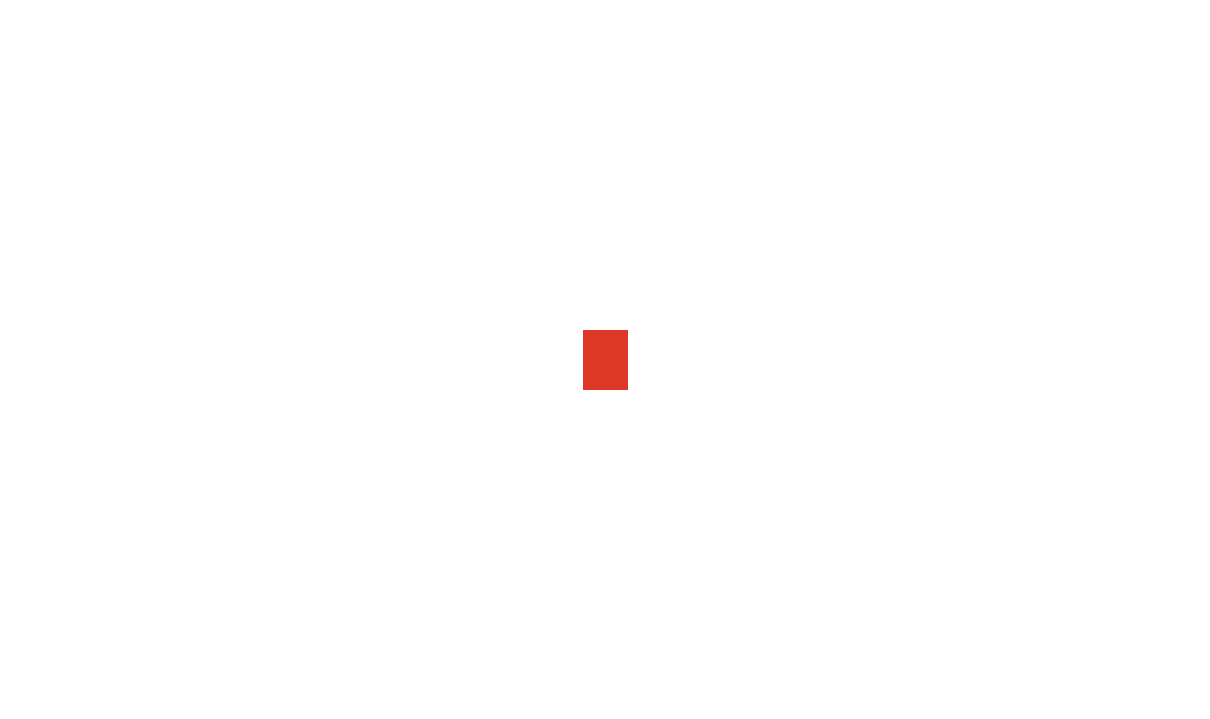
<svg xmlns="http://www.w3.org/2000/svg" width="1210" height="719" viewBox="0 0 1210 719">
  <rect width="100%" height="100%" fill="#ffffff"/>
  <image x="1168" y="214" width="14" height="15" href="img1.png"/>
  <rect x="583" y="330" width="45" height="60" fill="#de3826"/>
</svg>
